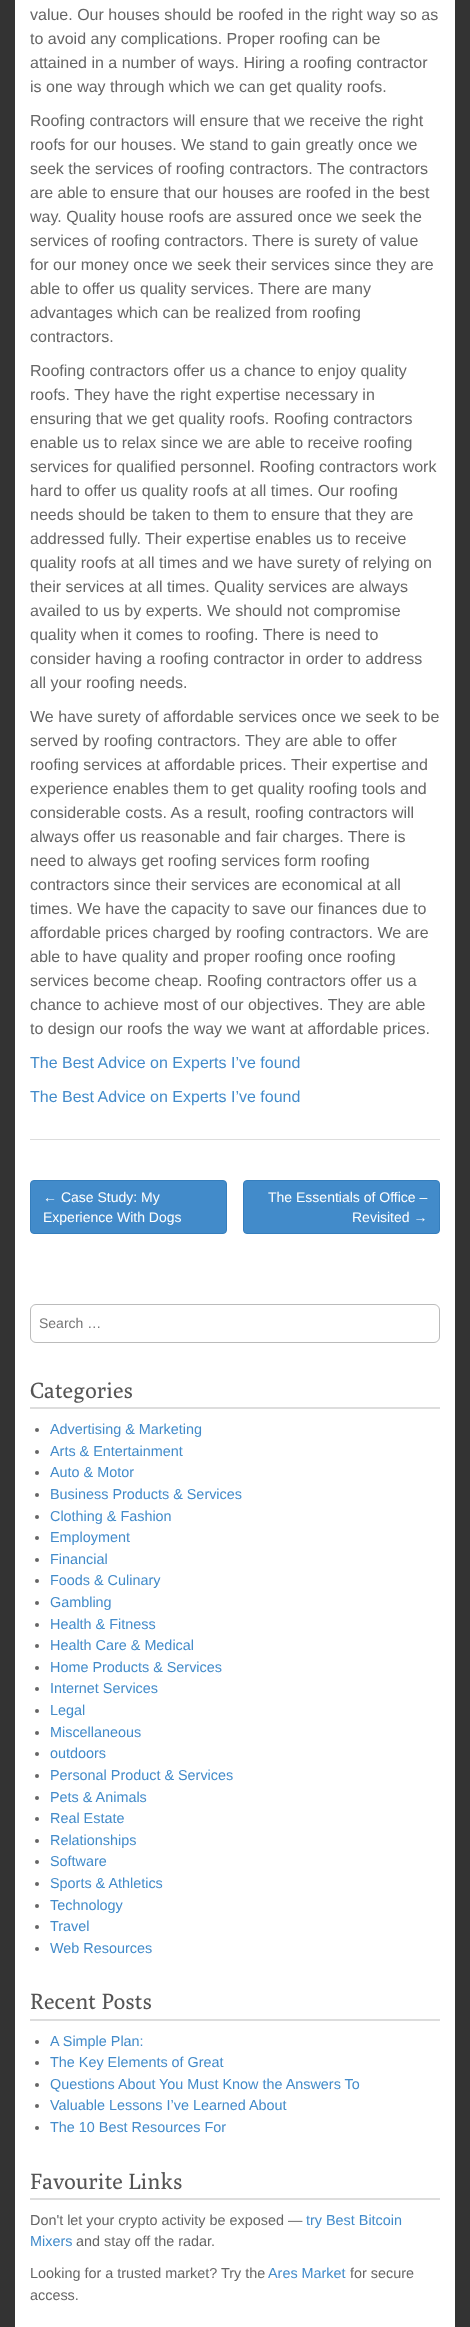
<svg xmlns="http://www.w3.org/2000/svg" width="470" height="2327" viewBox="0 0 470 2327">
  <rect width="100%" height="100%" fill="#333333"/>
  <rect x="15" y="0" width="440" height="2327" fill="#ffffff"/>
  <rect x="30" y="1139" width="410" height="1" fill="#dddddd"/>
  <text x="30" y="20" font-family="Liberation Sans" font-size="16" fill="#666666">value. Our houses should be roofed in the right way so as</text>
  <text x="30" y="44" font-family="Liberation Sans" font-size="16" fill="#666666">to avoid any complications. Proper roofing can be</text>
  <text x="30" y="68" font-family="Liberation Sans" font-size="16" fill="#666666">attained in a number of ways. Hiring a roofing contractor</text>
  <text x="30" y="92" font-family="Liberation Sans" font-size="16" fill="#666666">is one way through which we can get quality roofs.</text>
  <text x="30" y="126" font-family="Liberation Sans" font-size="16" fill="#666666">Roofing contractors will ensure that we receive the right</text>
  <text x="30" y="150" font-family="Liberation Sans" font-size="16" fill="#666666">roofs for our houses. We stand to gain greatly once we</text>
  <text x="30" y="174" font-family="Liberation Sans" font-size="16" fill="#666666">seek the services of roofing contractors. The contractors</text>
  <text x="30" y="198" font-family="Liberation Sans" font-size="16" fill="#666666">are able to ensure that our houses are roofed in the best</text>
  <text x="30" y="222" font-family="Liberation Sans" font-size="16" fill="#666666">way. Quality house roofs are assured once we seek the</text>
  <text x="30" y="246" font-family="Liberation Sans" font-size="16" fill="#666666">services of roofing contractors. There is surety of value</text>
  <text x="30" y="270" font-family="Liberation Sans" font-size="16" fill="#666666">for our money once we seek their services since they are</text>
  <text x="30" y="294" font-family="Liberation Sans" font-size="16" fill="#666666">able to offer us quality services. There are many</text>
  <text x="30" y="318" font-family="Liberation Sans" font-size="16" fill="#666666">advantages which can be realized from roofing</text>
  <text x="30" y="342" font-family="Liberation Sans" font-size="16" fill="#666666">contractors.</text>
  <text x="30" y="376" font-family="Liberation Sans" font-size="16" fill="#666666">Roofing contractors offer us a chance to enjoy quality</text>
  <text x="30" y="400" font-family="Liberation Sans" font-size="16" fill="#666666">roofs. They have the right expertise necessary in</text>
  <text x="30" y="424" font-family="Liberation Sans" font-size="16" fill="#666666">ensuring that we get quality roofs. Roofing contractors</text>
  <text x="30" y="448" font-family="Liberation Sans" font-size="16" fill="#666666">enable us to relax since we are able to receive roofing</text>
  <text x="30" y="472" font-family="Liberation Sans" font-size="16" fill="#666666">services for qualified personnel. Roofing contractors work</text>
  <text x="30" y="496" font-family="Liberation Sans" font-size="16" fill="#666666">hard to offer us quality roofs at all times. Our roofing</text>
  <text x="30" y="520" font-family="Liberation Sans" font-size="16" fill="#666666">needs should be taken to them to ensure that they are</text>
  <text x="30" y="544" font-family="Liberation Sans" font-size="16" fill="#666666">addressed fully. Their expertise enables us to receive</text>
  <text x="30" y="568" font-family="Liberation Sans" font-size="16" fill="#666666">quality roofs at all times and we have surety of relying on</text>
  <text x="30" y="592" font-family="Liberation Sans" font-size="16" fill="#666666">their services at all times. Quality services are always</text>
  <text x="30" y="616" font-family="Liberation Sans" font-size="16" fill="#666666">availed to us by experts. We should not compromise</text>
  <text x="30" y="640" font-family="Liberation Sans" font-size="16" fill="#666666">quality when it comes to roofing. There is need to</text>
  <text x="30" y="664" font-family="Liberation Sans" font-size="16" fill="#666666">consider having a roofing contractor in order to address</text>
  <text x="30" y="688" font-family="Liberation Sans" font-size="16" fill="#666666">all your roofing needs.</text>
  <text x="30" y="722" font-family="Liberation Sans" font-size="16" fill="#666666">We have surety of affordable services once we seek to be</text>
  <text x="30" y="746" font-family="Liberation Sans" font-size="16" fill="#666666">served by roofing contractors. They are able to offer</text>
  <text x="30" y="770" font-family="Liberation Sans" font-size="16" fill="#666666">roofing services at affordable prices. Their expertise and</text>
  <text x="30" y="794" font-family="Liberation Sans" font-size="16" fill="#666666">experience enables them to get quality roofing tools and</text>
  <text x="30" y="818" font-family="Liberation Sans" font-size="16" fill="#666666">considerable costs. As a result, roofing contractors will</text>
  <text x="30" y="842" font-family="Liberation Sans" font-size="16" fill="#666666">always offer us reasonable and fair charges. There is</text>
  <text x="30" y="866" font-family="Liberation Sans" font-size="16" fill="#666666">need to always get roofing services form roofing</text>
  <text x="30" y="890" font-family="Liberation Sans" font-size="16" fill="#666666">contractors since their services are economical at all</text>
  <text x="30" y="914" font-family="Liberation Sans" font-size="16" fill="#666666">times. We have the capacity to save our finances due to</text>
  <text x="30" y="938" font-family="Liberation Sans" font-size="16" fill="#666666">affordable prices charged by roofing contractors. We are</text>
  <text x="30" y="962" font-family="Liberation Sans" font-size="16" fill="#666666">able to have quality and proper roofing once roofing</text>
  <text x="30" y="986" font-family="Liberation Sans" font-size="16" fill="#666666">services become cheap. Roofing contractors offer us a</text>
  <text x="30" y="1010" font-family="Liberation Sans" font-size="16" fill="#666666">chance to achieve most of our objectives. They are able</text>
  <text x="30" y="1034" font-family="Liberation Sans" font-size="16" fill="#666666">to design our roofs the way we want at affordable prices.</text>
  <text x="30" y="1068" font-family="Liberation Sans" font-size="16" fill="#428bca">The Best Advice on Experts I’ve found</text>
  <text x="30" y="1102" font-family="Liberation Sans" font-size="16" fill="#428bca">The Best Advice on Experts I’ve found</text>
  <rect x="30.5" y="1180.5" width="196" height="53" rx="3.5" fill="#428bca" stroke="#357ebd"/>
  <text x="43" y="1202" font-family="Liberation Sans" font-size="14" fill="#ffffff">← Case Study: My</text>
  <text x="43" y="1222" font-family="Liberation Sans" font-size="14" fill="#ffffff">Experience With Dogs</text>
  <rect x="243.5" y="1180.5" width="196" height="53" rx="3.5" fill="#428bca" stroke="#357ebd"/>
  <text x="268" y="1202" font-family="Liberation Sans" font-size="14" fill="#ffffff">The Essentials of Office –</text>
  <text x="352" y="1222" font-family="Liberation Sans" font-size="14" fill="#ffffff">Revisited →</text>
  <rect x="30.5" y="1304.5" width="409" height="38" rx="5.5" fill="none" stroke="#bbbbbb"/>
  <text x="39" y="1328" font-family="Liberation Sans" font-size="14" fill="#757575">Search …</text>
  <rect x="30" y="1407" width="410" height="2" fill="#dddddd"/>
  <text x="30" y="1398" font-family="Poly" font-size="22" fill="#555555">Categories</text>
  <circle cx="37" cy="1430" r="2" fill="#666666"/>
  <text x="50" y="1434" font-family="Liberation Sans" font-size="14.4" fill="#428bca">Advertising &amp; Marketing</text>
  <circle cx="37" cy="1452" r="2" fill="#666666"/>
  <text x="50" y="1456" font-family="Liberation Sans" font-size="14.4" fill="#428bca">Arts &amp; Entertainment</text>
  <circle cx="37" cy="1473" r="2" fill="#666666"/>
  <text x="50" y="1477" font-family="Liberation Sans" font-size="14.4" fill="#428bca">Auto &amp; Motor</text>
  <circle cx="37" cy="1495" r="2" fill="#666666"/>
  <text x="50" y="1499" font-family="Liberation Sans" font-size="14.4" fill="#428bca">Business Products &amp; Services</text>
  <circle cx="37" cy="1517" r="2" fill="#666666"/>
  <text x="50" y="1521" font-family="Liberation Sans" font-size="14.4" fill="#428bca">Clothing &amp; Fashion</text>
  <circle cx="37" cy="1538" r="2" fill="#666666"/>
  <text x="50" y="1542" font-family="Liberation Sans" font-size="14.4" fill="#428bca">Employment</text>
  <circle cx="37" cy="1560" r="2" fill="#666666"/>
  <text x="50" y="1564" font-family="Liberation Sans" font-size="14.4" fill="#428bca">Financial</text>
  <circle cx="37" cy="1581" r="2" fill="#666666"/>
  <text x="50" y="1585" font-family="Liberation Sans" font-size="14.4" fill="#428bca">Foods &amp; Culinary</text>
  <circle cx="37" cy="1603" r="2" fill="#666666"/>
  <text x="50" y="1607" font-family="Liberation Sans" font-size="14.4" fill="#428bca">Gambling</text>
  <circle cx="37" cy="1625" r="2" fill="#666666"/>
  <text x="50" y="1629" font-family="Liberation Sans" font-size="14.4" fill="#428bca">Health &amp; Fitness</text>
  <circle cx="37" cy="1646" r="2" fill="#666666"/>
  <text x="50" y="1650" font-family="Liberation Sans" font-size="14.4" fill="#428bca">Health Care &amp; Medical</text>
  <circle cx="37" cy="1668" r="2" fill="#666666"/>
  <text x="50" y="1672" font-family="Liberation Sans" font-size="14.4" fill="#428bca">Home Products &amp; Services</text>
  <circle cx="37" cy="1689" r="2" fill="#666666"/>
  <text x="50" y="1693" font-family="Liberation Sans" font-size="14.4" fill="#428bca">Internet Services</text>
  <circle cx="37" cy="1711" r="2" fill="#666666"/>
  <text x="50" y="1715" font-family="Liberation Sans" font-size="14.4" fill="#428bca">Legal</text>
  <circle cx="37" cy="1733" r="2" fill="#666666"/>
  <text x="50" y="1737" font-family="Liberation Sans" font-size="14.4" fill="#428bca">Miscellaneous</text>
  <circle cx="37" cy="1754" r="2" fill="#666666"/>
  <text x="50" y="1758" font-family="Liberation Sans" font-size="14.4" fill="#428bca">outdoors</text>
  <circle cx="37" cy="1776" r="2" fill="#666666"/>
  <text x="50" y="1780" font-family="Liberation Sans" font-size="14.4" fill="#428bca">Personal Product &amp; Services</text>
  <circle cx="37" cy="1798" r="2" fill="#666666"/>
  <text x="50" y="1802" font-family="Liberation Sans" font-size="14.4" fill="#428bca">Pets &amp; Animals</text>
  <circle cx="37" cy="1819" r="2" fill="#666666"/>
  <text x="50" y="1823" font-family="Liberation Sans" font-size="14.4" fill="#428bca">Real Estate</text>
  <circle cx="37" cy="1841" r="2" fill="#666666"/>
  <text x="50" y="1845" font-family="Liberation Sans" font-size="14.4" fill="#428bca">Relationships</text>
  <circle cx="37" cy="1862" r="2" fill="#666666"/>
  <text x="50" y="1866" font-family="Liberation Sans" font-size="14.4" fill="#428bca">Software</text>
  <circle cx="37" cy="1884" r="2" fill="#666666"/>
  <text x="50" y="1888" font-family="Liberation Sans" font-size="14.4" fill="#428bca">Sports &amp; Athletics</text>
  <circle cx="37" cy="1906" r="2" fill="#666666"/>
  <text x="50" y="1910" font-family="Liberation Sans" font-size="14.4" fill="#428bca">Technology</text>
  <circle cx="37" cy="1927" r="2" fill="#666666"/>
  <text x="50" y="1931" font-family="Liberation Sans" font-size="14.4" fill="#428bca">Travel</text>
  <circle cx="37" cy="1949" r="2" fill="#666666"/>
  <text x="50" y="1953" font-family="Liberation Sans" font-size="14.4" fill="#428bca">Web Resources</text>
  <rect x="30" y="2019" width="410" height="2" fill="#dddddd"/>
  <text x="30" y="2009" font-family="Poly" font-size="22" fill="#555555">Recent Posts</text>
  <circle cx="37" cy="2042" r="2" fill="#666666"/>
  <text x="50" y="2046" font-family="Liberation Sans" font-size="14.4" fill="#428bca">A Simple Plan:</text>
  <circle cx="37" cy="2063" r="2" fill="#666666"/>
  <text x="50" y="2067" font-family="Liberation Sans" font-size="14.4" fill="#428bca">The Key Elements of Great</text>
  <circle cx="37" cy="2085" r="2" fill="#666666"/>
  <text x="50" y="2089" font-family="Liberation Sans" font-size="14.4" fill="#428bca">Questions About</text>
  <text x="159" y="2089" font-family="Liberation Sans" font-size="14.4" fill="#428bca">You Must Know the Answers To</text>
  <circle cx="37" cy="2106" r="2" fill="#666666"/>
  <text x="50" y="2110" font-family="Liberation Sans" font-size="14.4" fill="#428bca">Valuable Lessons I’ve Learned About</text>
  <circle cx="37" cy="2128" r="2" fill="#666666"/>
  <text x="50" y="2132" font-family="Liberation Sans" font-size="14.4" fill="#428bca">The 10 Best Resources For</text>
  <rect x="30" y="2198" width="410" height="2" fill="#dddddd"/>
  <text x="30" y="2189" font-family="Poly" font-size="22" fill="#555555">Favourite Links</text>
  <text x="30" y="2225" font-family="Liberation Sans" font-size="14.4" fill="#666666">Don't let your crypto activity be exposed —</text>
  <text x="306" y="2225" font-family="Liberation Sans" font-size="14.4" fill="#428bca">try Best Bitcoin</text>
  <text x="30" y="2246" font-family="Liberation Sans" font-size="14.4" fill="#428bca">Mixers</text>
  <text x="76" y="2246" font-family="Liberation Sans" font-size="14.4" fill="#666666">and stay off the radar.</text>
  <text x="30" y="2278" font-family="Liberation Sans" font-size="14.4" fill="#666666">Looking for a trusted market? Try the</text>
  <text x="268" y="2278" font-family="Liberation Sans" font-size="14.4" fill="#428bca">Ares Market</text>
  <text x="350" y="2278" font-family="Liberation Sans" font-size="14.4" fill="#666666">for secure</text>
  <text x="30" y="2300" font-family="Liberation Sans" font-size="14.4" fill="#666666">access.</text>
</svg>
